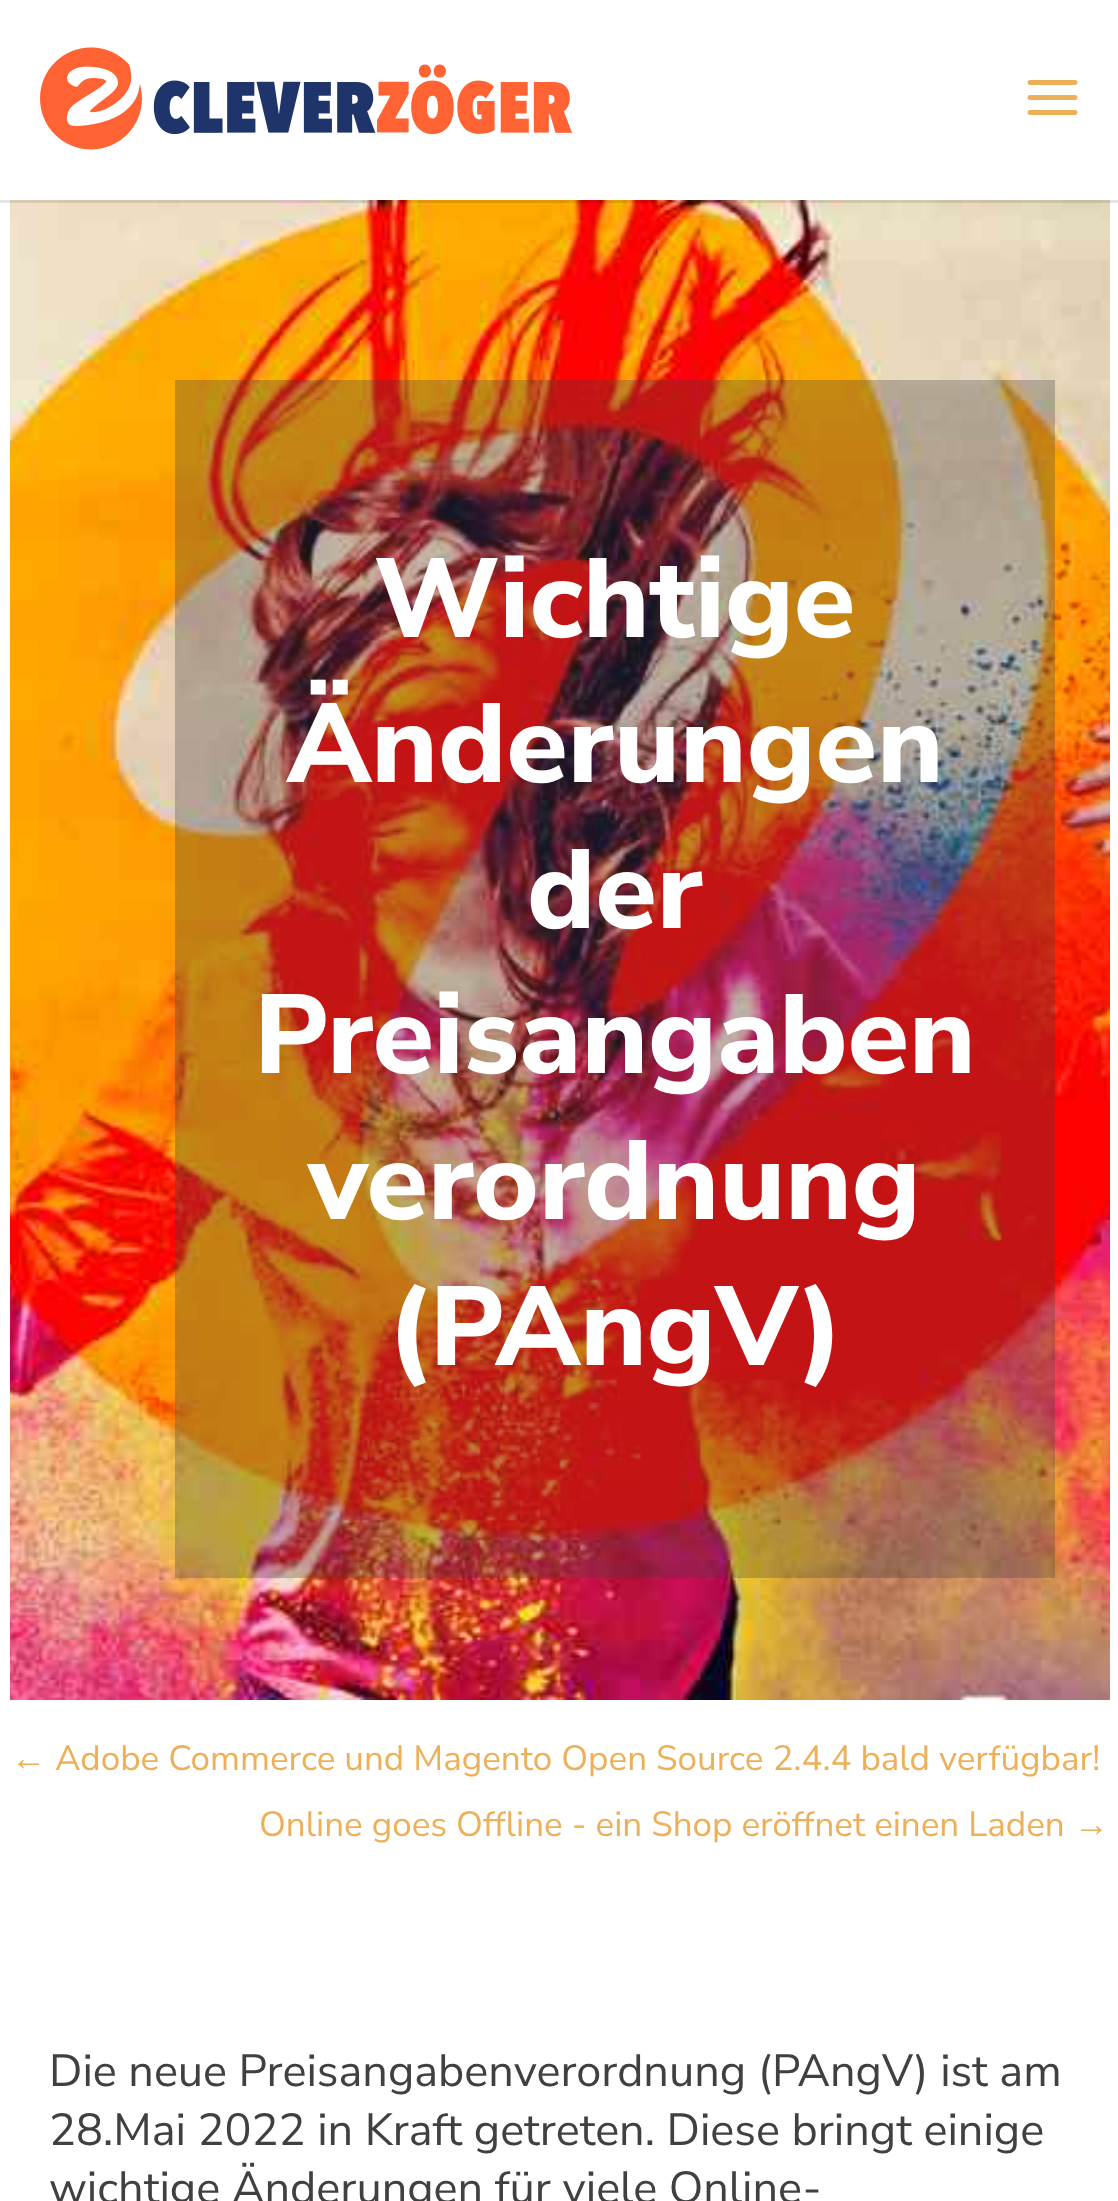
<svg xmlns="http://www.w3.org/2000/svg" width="1118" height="2201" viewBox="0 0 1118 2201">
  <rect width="100%" height="100%" fill="#ffffff"/>
  <image x="10" y="200" width="1100" height="1500" href="img3.png"/>
  <rect x="0" y="200" width="1118" height="3" fill="#000000" fill-opacity="0.1"/>
  <image x="40" y="47" width="532" height="103" href="img1.png"/>
  <image x="1027" y="80" width="51" height="35" href="img2.png"/>
  <rect x="175" y="380" width="880" height="1198" fill="#404040" fill-opacity="0.3"/>
  <text x="374" y="637" font-family="Nunito Sans" font-size="112" font-weight="800" fill="#ffffff">Wichtige</text>
  <text x="287" y="782" font-family="Nunito Sans" font-size="112" font-weight="800" fill="#ffffff">Änderungen</text>
  <text x="527" y="928" font-family="Nunito Sans" font-size="112" font-weight="800" fill="#ffffff">der</text>
  <text x="254" y="1073" font-family="Nunito Sans" font-size="112" font-weight="800" fill="#ffffff">Preisangaben</text>
  <text x="308" y="1219" font-family="Nunito Sans" font-size="112" font-weight="800" fill="#ffffff">verordnung</text>
  <text x="387" y="1365" font-family="Nunito Sans" font-size="112" font-weight="800" fill="#ffffff">(PAngV)</text>
  <text x="11" y="1770" font-family="Liberation Sans" font-size="35" fill="#edb059">←</text>
  <text x="55" y="1770" font-family="Nunito Sans" font-size="35" fill="#edb059">Adobe Commerce und Magento Open Source 2.4.4 bald verfügbar!</text>
  <text x="259" y="1836" font-family="Nunito Sans" font-size="35" fill="#edb059">Online goes Offline - ein Shop eröffnet einen Laden</text>
  <text x="1074" y="1836" font-family="Liberation Sans" font-size="35" fill="#edb059">→</text>
  <text x="49" y="2086" font-family="Nunito Sans" font-size="45" fill="#404040">Die neue Preisangabenverordnung (PAngV) ist am</text>
  <text x="49" y="2145" font-family="Nunito Sans" font-size="45" fill="#404040">28.Mai 2022 in Kraft getreten. Diese bringt einige</text>
  <text x="49" y="2203" font-family="Nunito Sans" font-size="45" fill="#404040">wichtige Änderungen für viele Online-</text>
</svg>
